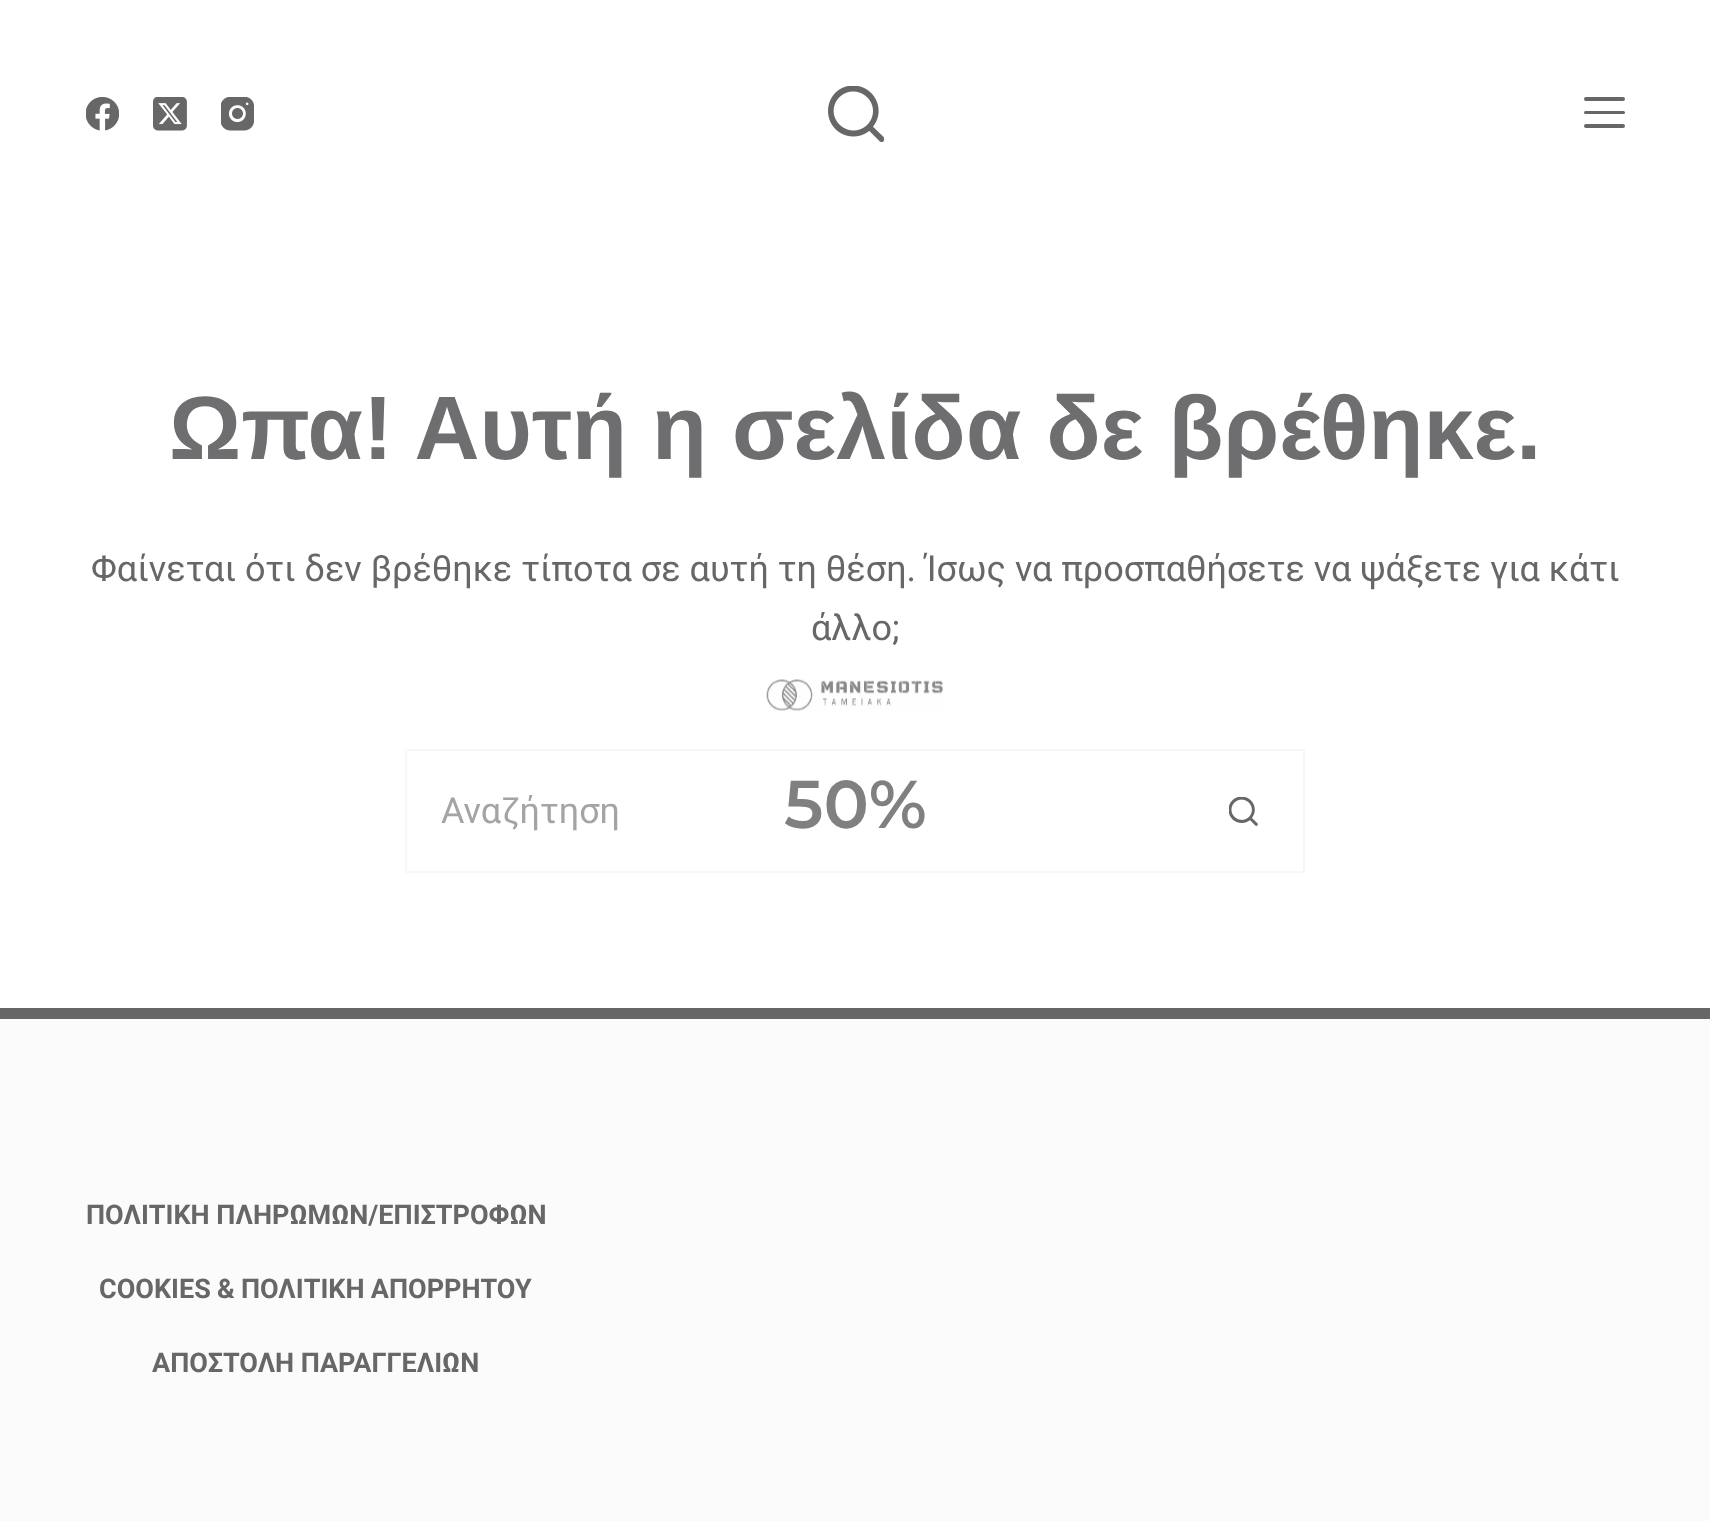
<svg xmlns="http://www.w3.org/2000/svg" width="1710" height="1521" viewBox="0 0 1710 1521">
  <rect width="100%" height="100%" fill="#ffffff"/>
  <image x="86" y="97" width="33" height="34" href="img1.png"/>
  <image x="153" y="97" width="34" height="34" href="img2.png"/>
  <image x="221" y="97" width="33" height="34" href="img3.png"/>
  <image x="828" y="86" width="56" height="56" href="img4.png"/>
  <rect x="1584" y="97" width="41" height="4" rx="2" fill="#676767"/>
  <rect x="1584" y="111" width="41" height="3" rx="1.5" fill="#676767"/>
  <rect x="1584" y="124" width="41" height="4" rx="2" fill="#676767"/>
  <text x="169" y="459" font-family="Liberation Sans" font-size="90" font-weight="bold" fill="#6e6e71">Ωπα! Αυτή η σελίδα δε βρέθηκε.</text>
  <text x="91" y="581" font-family="Roboto" font-size="36" fill="#676767">Φαίνεται ότι δεν βρέθηκε τίποτα σε αυτή τη θέση. Ίσως να προσπαθήσετε να ψάξετε για κάτι</text>
  <text x="811" y="640" font-family="Roboto" font-size="36" fill="#676767">άλλο;</text>
  <rect x="405" y="749" width="900" height="2" fill="#f7f7f7"/>
  <rect x="405" y="871" width="776" height="2" fill="#f7f7f7"/>
  <rect x="405" y="749" width="2" height="124" fill="#f7f7f7"/>
  <text x="441" y="823" font-family="Roboto" font-size="36" fill="#a4a4a4">Αναζήτηση</text>
  <rect x="1303" y="749" width="2" height="124" fill="#f7f7f7"/>
  <rect x="1181" y="871" width="124" height="2" fill="#f7f7f7"/>
  <image x="1229" y="797" width="29" height="29" href="img5.png"/>
  <rect x="0" y="1019" width="1710" height="502" fill="#fbfbfb"/>
  <rect x="0" y="1008" width="1710" height="11" fill="#666666"/>
  <text x="86" y="1224" font-family="Roboto" font-size="27" font-weight="bold" fill="#676767">ΠΟΛΙΤΙΚΗ ΠΛΗΡΩΜΩΝ/ΕΠΙΣΤΡΟΦΩΝ</text>
  <text x="99" y="1298" word-spacing="-0.5" font-family="Roboto" font-size="27" font-weight="bold" fill="#676767">COOKIES &amp; ΠΟΛΙΤΙΚΗ ΑΠΟΡΡΗΤΟΥ</text>
  <text x="152" y="1372" font-family="Roboto" font-size="27" font-weight="bold" fill="#676767">ΑΠΟΣΤΟΛΗ ΠΑΡΑΓΓΕΛΙΩΝ</text>
  <image x="766" y="679" width="177" height="32" href="img6.png"/>
  <text x="784" y="828" font-family="Montserrat" font-size="67.5" font-weight="600" fill="#808080">50%</text>
</svg>
